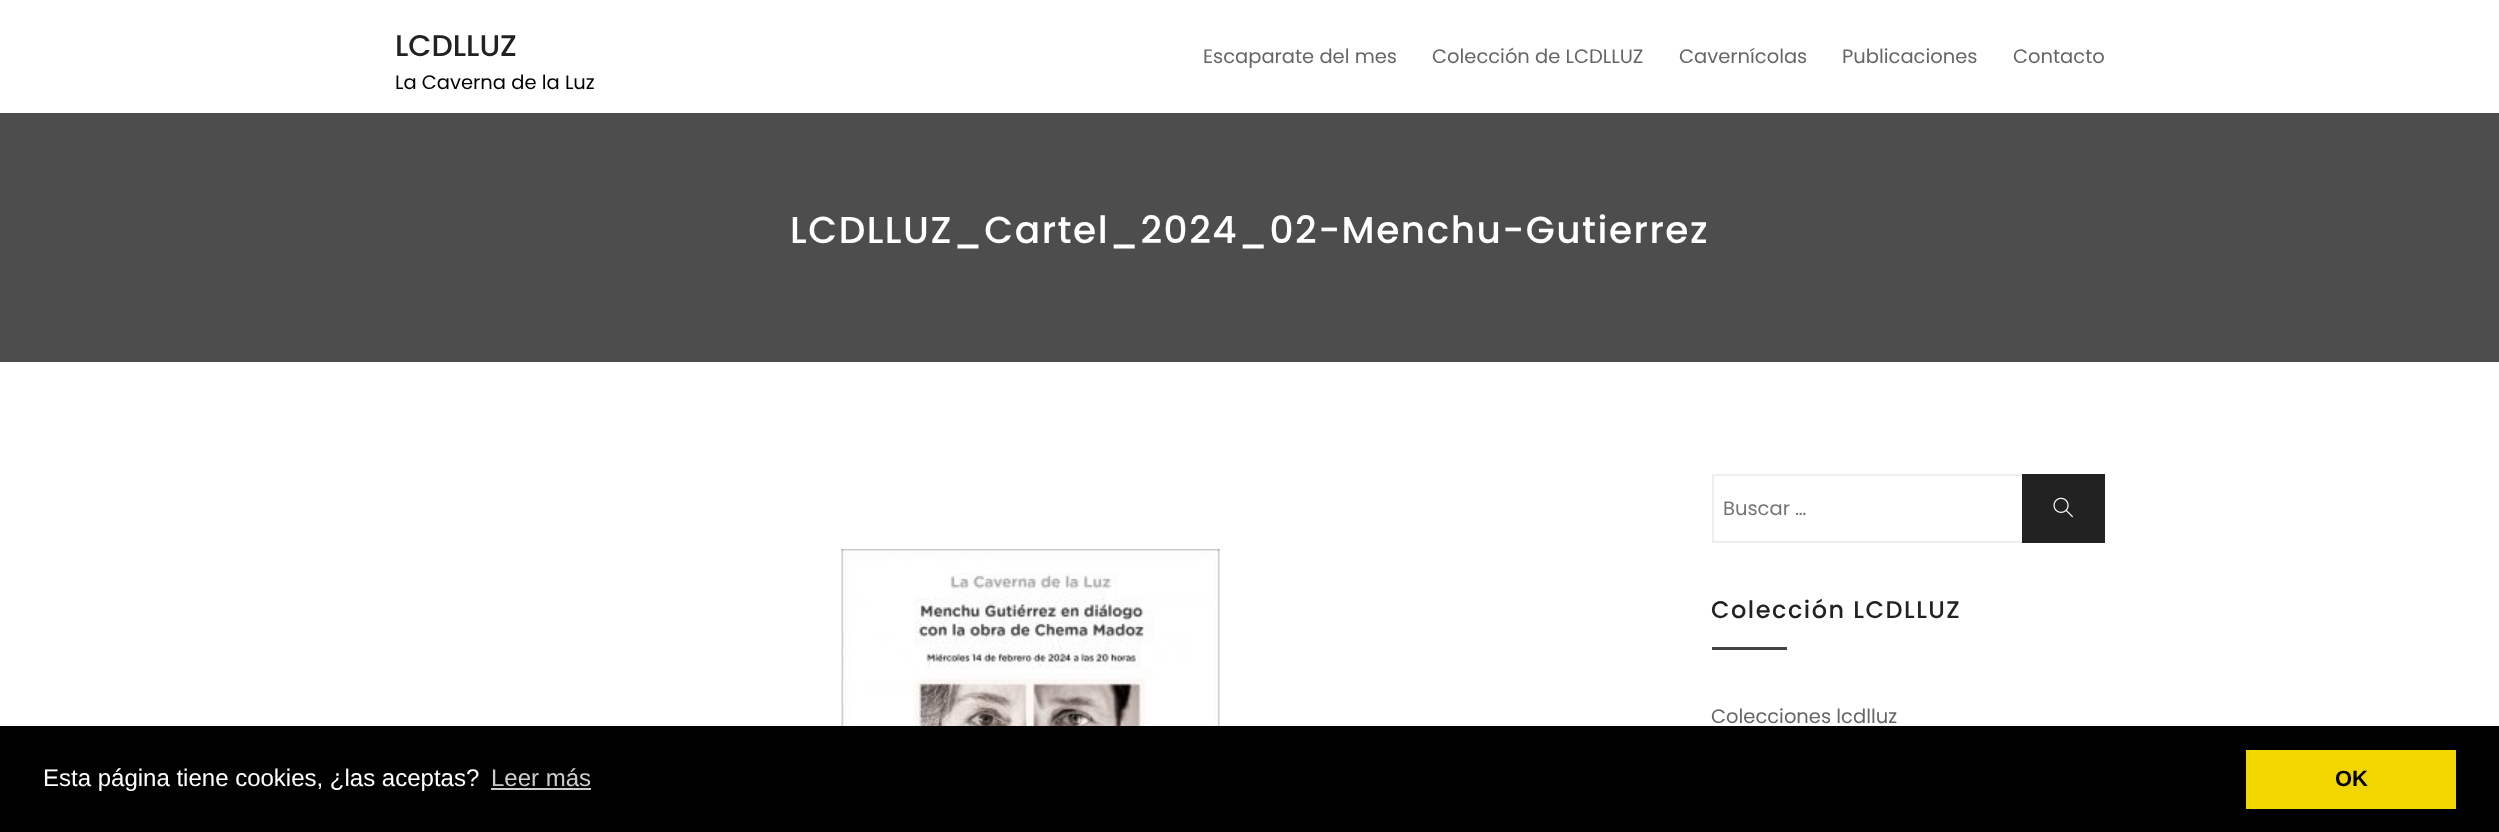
<svg xmlns="http://www.w3.org/2000/svg" width="2499" height="832" viewBox="0 0 2499 832">
  <rect width="100%" height="100%" fill="#ffffff"/>
  <text x="395" y="56" font-family="Poppins" font-size="30" font-weight="500" fill="#222222">LCDLLUZ</text>
  <text x="395" y="89" font-family="Poppins" font-size="19.5" fill="#000000">La Caverna de la Luz</text>
  <text x="1203" y="63" font-family="Poppins" font-size="19.5" fill="#666666">Escaparate del mes</text>
  <text x="1432" y="63" font-family="Poppins" font-size="19.5" fill="#666666">Colección de LCDLLUZ</text>
  <text x="1679" y="63" font-family="Poppins" font-size="19.5" fill="#666666">Cavernícolas</text>
  <text x="1842" y="63" font-family="Poppins" font-size="19.5" fill="#666666">Publicaciones</text>
  <text x="2013" y="63" font-family="Poppins" font-size="19.5" fill="#666666">Contacto</text>
  <rect x="0" y="113" width="2499" height="249" fill="#4d4d4d"/>
  <text x="790" y="243" font-family="Poppins" font-size="37.5" font-weight="500" letter-spacing="1.5" fill="#ffffff">LCDLLUZ_Cartel_2024_02-Menchu-Gutierrez</text>
  <image x="841" y="549" width="379" height="177" href="img1.png"/>
  <rect x="1713" y="475" width="391" height="67" fill="none" stroke="#eeeeee" stroke-width="2"/>
  <text x="1723" y="515" font-family="Poppins" font-size="19.5" fill="#757575">Buscar …</text>
  <rect x="2022" y="474" width="83" height="69" fill="#222222"/>
  <image x="2053" y="497" width="20" height="21" href="img2.png"/>
  <text x="1711" y="618" font-family="Poppins" font-size="24" font-weight="500" letter-spacing="1.5" fill="#222222">Colección LCDLLUZ</text>
  <rect x="1712" y="647" width="75" height="3" fill="#444444"/>
  <text x="1711" y="723" font-family="Poppins" font-size="19.5" fill="#666666">Colecciones lcdlluz</text>
  <rect x="0" y="726" width="2499" height="106" fill="#000000"/>
  <text x="43" y="786" font-family="Liberation Sans" font-size="24" fill="#ffffff">Esta página tiene cookies, ¿las aceptas?</text>
  <text x="491" y="786" font-family="Liberation Sans" font-size="24" fill="#cccccc">Leer más</text>
  <rect x="491" y="788" width="100" height="2" fill="#cccccc"/>
  <rect x="2246" y="750" width="210" height="59" fill="#f1d600"/>
  <text x="2335" y="786" font-family="Liberation Sans" font-size="22" font-weight="bold" fill="#000000">OK</text>
</svg>
